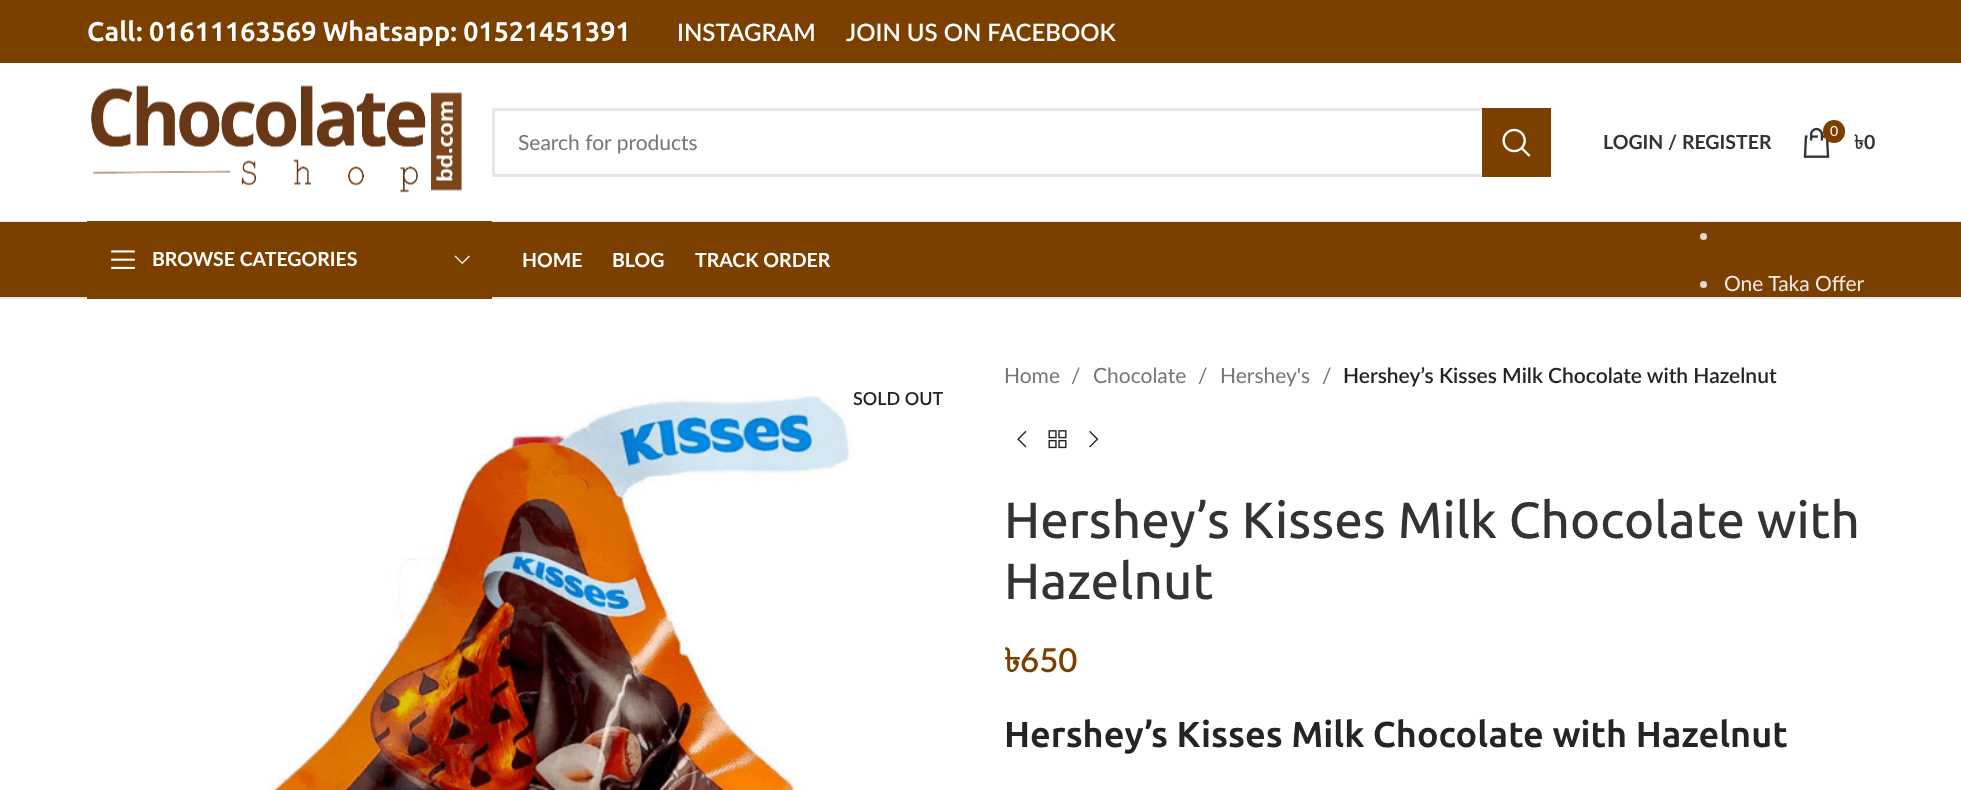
<svg xmlns="http://www.w3.org/2000/svg" width="1961" height="790" viewBox="0 0 1961 790">
  <rect width="100%" height="100%" fill="#ffffff"/>
  <rect x="0" y="0" width="1961" height="63" fill="#7b3f00"/>
  <text x="87" y="41" font-family="Ubuntu" font-size="27" font-weight="bold" fill="#ffffff">Call: 01611163569 Whatsapp: 01521451391</text>
  <text x="677" y="41" font-family="Lato" font-size="24" font-weight="600" fill="#ffffff">INSTAGRAM</text>
  <text x="846" y="41" font-family="Lato" font-size="24" font-weight="600" fill="#ffffff">JOIN US ON FACEBOOK</text>
  <rect x="0" y="221" width="1961" height="1" fill="#e8e8e8"/>
  <image x="91" y="85" width="371" height="108" href="img1.png"/>
  <rect x="493.5" y="109.5" width="1056" height="66" fill="none" stroke="#e6e6e6" stroke-width="3"/>
  <text x="518" y="150" font-family="Lato" font-size="21" fill="#767676">Search for products</text>
  <rect x="1482" y="108" width="69" height="69" fill="#7b3f00"/>
  <image x="1502" y="128" width="29" height="29" href="img2.png"/>
  <text x="1603" y="149" font-family="Lato" font-size="19.5" font-weight="bold" fill="#333333">LOGIN / REGISTER</text>
  <image x="1803" y="127" width="27" height="31" href="img3.png"/>
  <rect x="1823" y="120" width="22" height="23" rx="11" fill="#7b3f00"/>
  <text x="1830" y="136" font-family="Lato" font-size="14" fill="#ffffff">0</text>
  <text x="1854" y="149" font-family="Lohit Bengali" font-size="19.5" font-weight="bold" fill="#333333">৳</text>
  <text x="1864" y="149" font-family="Lato" font-size="19.5" font-weight="bold" fill="#333333">0</text>
  <rect x="0" y="222" width="1961" height="75" fill="#7b3f00"/>
  <rect x="0" y="297" width="1961" height="2" fill="#e8e8e8"/>
  <rect x="87" y="221" width="405" height="78" fill="#7b3f00"/>
  <image x="111" y="250" width="24" height="19" href="img4.png"/>
  <text x="152" y="266" font-family="Lato" font-size="19.5" font-weight="bold" fill="#ffffff">BROWSE CATEGORIES</text>
  <image x="454" y="255" width="16" height="9" href="img5.png"/>
  <text x="522" y="267" font-family="Lato" font-size="19.5" font-weight="bold" fill="#ffffff">HOME</text>
  <text x="612" y="267" font-family="Lato" font-size="19.5" font-weight="bold" fill="#ffffff">BLOG</text>
  <text x="695" y="267" font-family="Lato" font-size="19.5" font-weight="bold" fill="#ffffff">TRACK ORDER</text>
  <circle cx="1703.5" cy="236.5" r="3.5" fill="#e5d9cc"/>
  <circle cx="1703.5" cy="284.5" r="3.5" fill="#e5d9cc"/>
  <text x="1724" y="291" font-family="Lato" font-size="21" fill="#f2ece6">One Taka Offer</text>
  <image x="267" y="394" width="588" height="396" href="img6.png"/>
  <rect x="839" y="412" width="7" height="5" fill="#ffffff"/>
  <text x="853" y="405" font-family="Lato" font-size="18" font-weight="600" fill="#242424">SOLD OUT</text>
  <text x="1004" y="383" font-family="Lato" font-size="21" fill="#767676">Home</text>
  <text x="1071" y="383" font-family="Lato" font-size="21" fill="#767676">/</text>
  <text x="1093" y="383" font-family="Lato" font-size="21" fill="#767676">Chocolate</text>
  <text x="1198" y="383" font-family="Lato" font-size="21" fill="#767676">/</text>
  <text x="1220" y="383" font-family="Lato" font-size="21" fill="#767676">Hershey's</text>
  <text x="1322" y="383" font-family="Lato" font-size="21" fill="#767676">/</text>
  <text x="1343" y="383" font-family="Lato" font-size="21" font-weight="600" fill="#242424">Hershey’s Kisses Milk Chocolate with Hazelnut</text>
  <image x="1017" y="430" width="10" height="18" href="img7.png"/>
  <image x="1048" y="430" width="19" height="19" href="img8.png"/>
  <image x="1089" y="430" width="10" height="18" href="img9.png"/>
  <text x="1004" y="538" font-family="Ubuntu" font-size="51" font-weight="500" fill="#333333">Hershey’s Kisses Milk Chocolate with</text>
  <text x="1004" y="599" font-family="Ubuntu" font-size="51" font-weight="500" fill="#333333">Hazelnut</text>
  <text x="1004" y="672" font-family="Lohit Bengali" font-size="33" font-weight="bold" fill="#7b3f00">৳</text>
  <text x="1020" y="672" font-family="Lato" font-size="33" font-weight="600" fill="#7b3f00">650</text>
  <text x="1004" y="747" font-family="Ubuntu" font-size="36" font-weight="bold" fill="#242424">Hershey’s Kisses Milk Chocolate with Hazelnut</text>
</svg>
